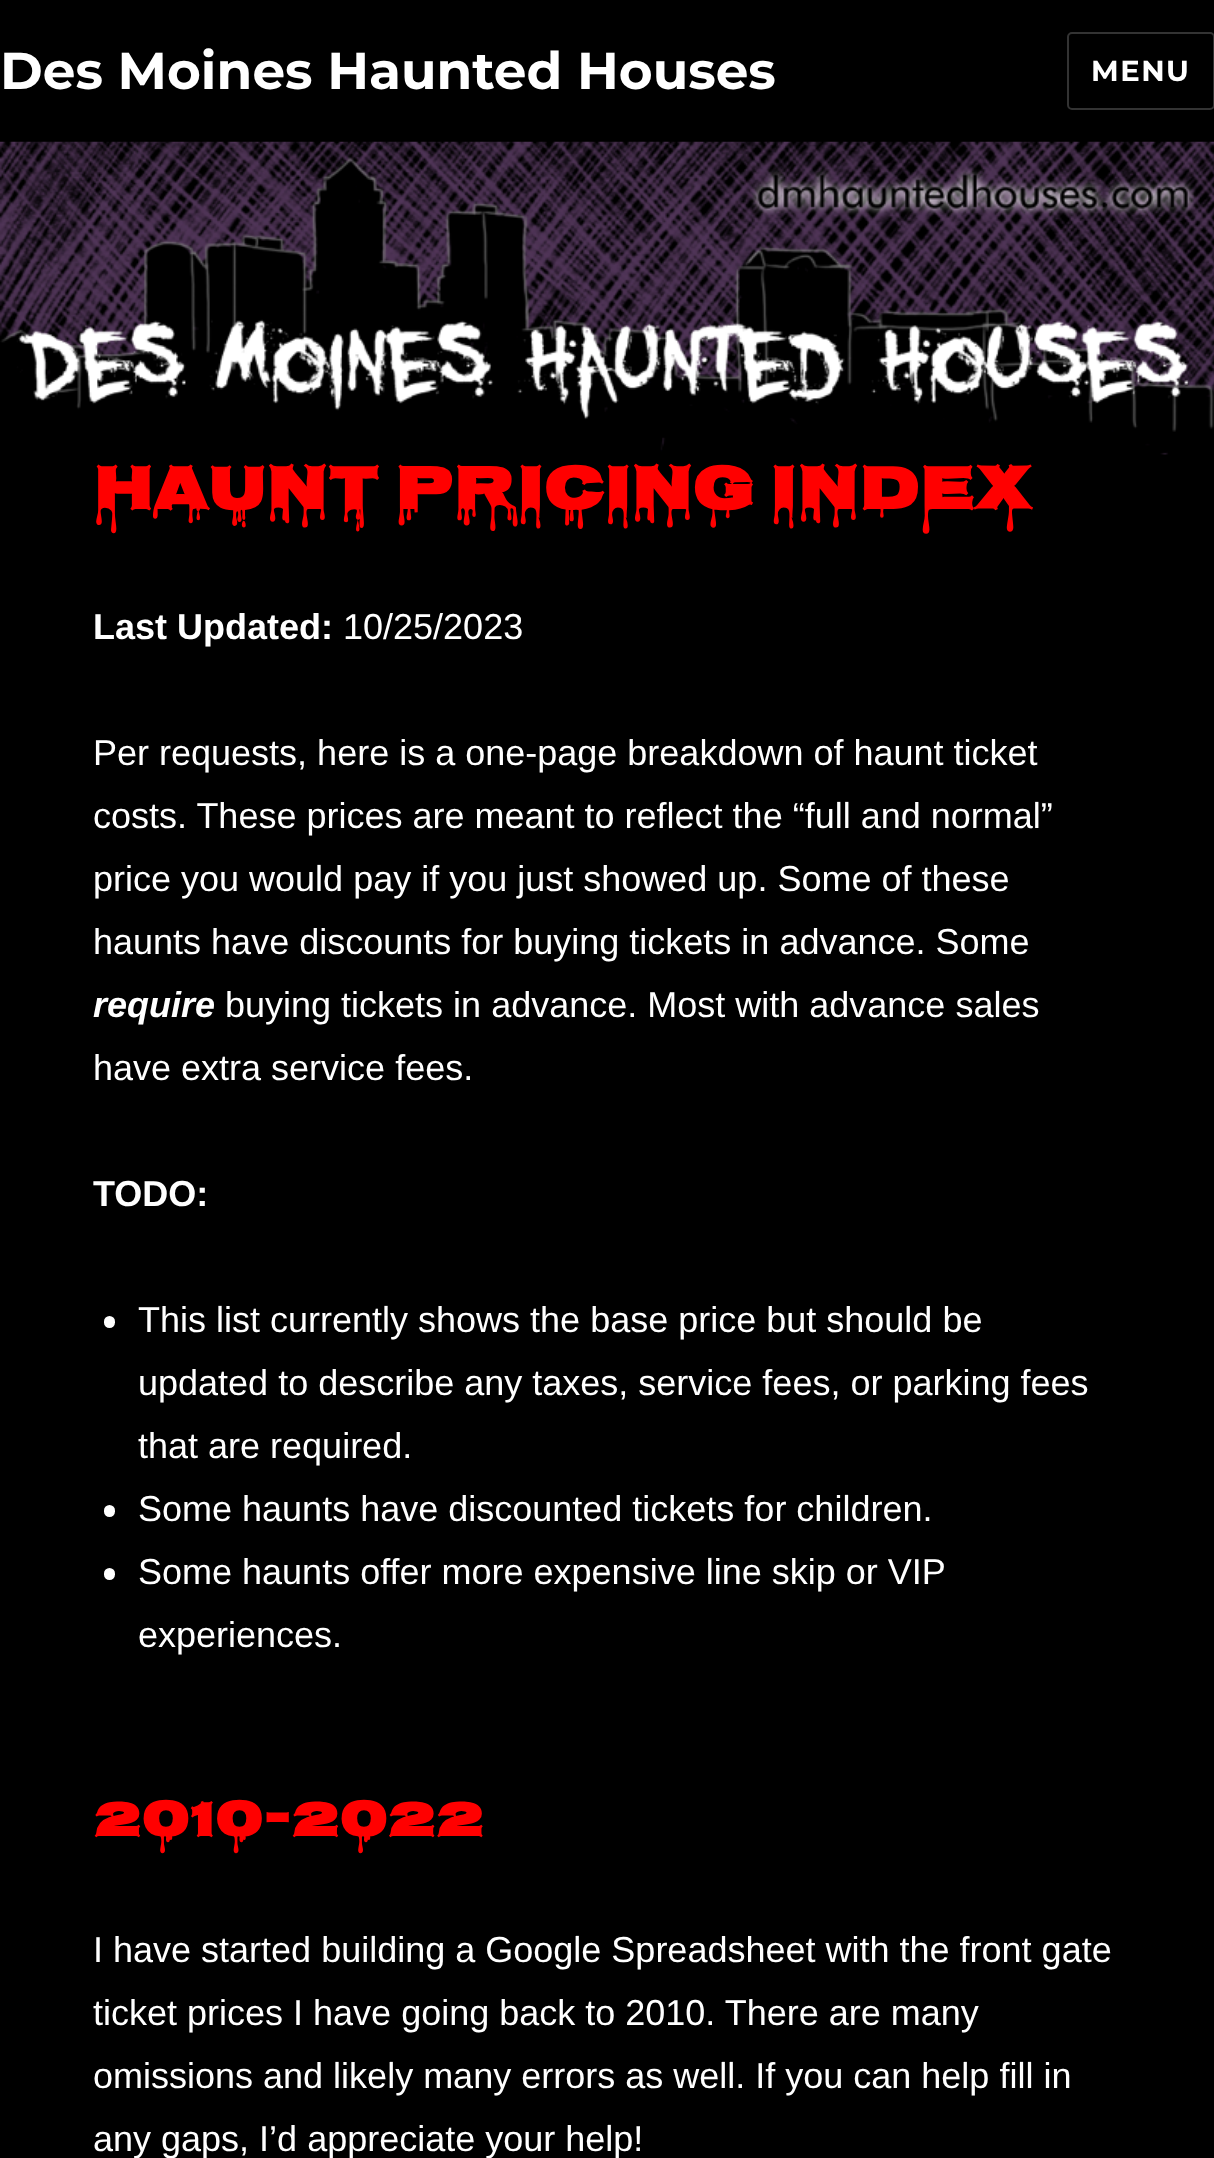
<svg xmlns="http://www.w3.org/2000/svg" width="1214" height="2158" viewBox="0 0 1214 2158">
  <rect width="100%" height="100%" fill="#000000"/>
  <text x="0" y="89" font-family="Montserrat" font-size="51.75" font-weight="100" fill="#ffffff">Des Moines Haunted Houses</text>
  <rect x="1068" y="33" width="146" height="76" rx="4" fill="none" stroke="#333333" stroke-width="2"/>
  <text x="1091" y="81" font-family="Montserrat" font-size="29" font-weight="100" letter-spacing="1.5" fill="#ffffff">MENU</text>
  <image x="0" y="141" width="1214" height="314" href="img1.png"/>
  <text x="93" y="509" font-family="Nosifer" font-size="63" font-weight="bold" fill="#ff0000">Haunt Pricing Index</text>
  <text x="93" y="639" font-family="Liberation Sans" font-size="36" font-weight="bold" fill="#ffffff">Last Updated:</text>
  <text x="343" y="639" font-family="Liberation Sans" font-size="36" fill="#ffffff">10/25/2023</text>
  <text x="93" y="765" font-family="Liberation Sans" font-size="36" fill="#ffffff">Per requests, here is a one-page breakdown of haunt ticket</text>
  <text x="93" y="828" font-family="Liberation Sans" font-size="36" fill="#ffffff">costs. These prices are meant to reflect the “full and normal”</text>
  <text x="93" y="891" font-family="Liberation Sans" font-size="36" fill="#ffffff">price you would pay if you just showed up. Some of these</text>
  <text x="93" y="954" font-family="Liberation Sans" font-size="36" fill="#ffffff">haunts have discounts for buying tickets in advance. Some</text>
  <text x="93" y="1017" font-family="Liberation Sans" font-size="36" font-weight="bold" font-style="italic" fill="#ffffff">require</text>
  <text x="225" y="1017" font-family="Liberation Sans" font-size="36" fill="#ffffff">buying tickets in advance. Most with advance sales</text>
  <text x="93" y="1080" font-family="Liberation Sans" font-size="36" fill="#ffffff">have extra service fees.</text>
  <text x="93" y="1206" font-family="Liberation Sans" font-size="36" font-weight="bold" fill="#ffffff">TODO:</text>
  <rect x="104" y="1316" width="11" height="12" rx="5.5" fill="#ffffff"/>
  <text x="138" y="1332" font-family="Liberation Sans" font-size="36" fill="#ffffff">This list currently shows the base price but should be</text>
  <text x="138" y="1395" font-family="Liberation Sans" font-size="36" fill="#ffffff">updated to describe any taxes, service fees, or parking fees</text>
  <text x="138" y="1458" font-family="Liberation Sans" font-size="36" fill="#ffffff">that are required.</text>
  <rect x="104" y="1505" width="11" height="12" rx="5.5" fill="#ffffff"/>
  <text x="138" y="1521" font-family="Liberation Sans" font-size="36" fill="#ffffff">Some haunts have discounted tickets for children.</text>
  <rect x="104" y="1568" width="11" height="12" rx="5.5" fill="#ffffff"/>
  <text x="138" y="1584" font-family="Liberation Sans" font-size="36" fill="#ffffff">Some haunts offer more expensive line skip or VIP</text>
  <text x="138" y="1647" font-family="Liberation Sans" font-size="36" fill="#ffffff">experiences.</text>
  <text x="93" y="1836" font-family="Nosifer" font-size="51.75" font-weight="bold" fill="#ff0000">2010-2022</text>
  <text x="93" y="1962" font-family="Liberation Sans" font-size="36" fill="#ffffff">I have started building a Google Spreadsheet with the front gate</text>
  <text x="93" y="2025" font-family="Liberation Sans" font-size="36" fill="#ffffff">ticket prices I have going back to 2010. There are many</text>
  <text x="93" y="2088" font-family="Liberation Sans" font-size="36" fill="#ffffff">omissions and likely many errors as well. If you can help fill in</text>
  <text x="93" y="2151" font-family="Liberation Sans" font-size="36" fill="#ffffff">any gaps, I’d appreciate your help!</text>
</svg>
